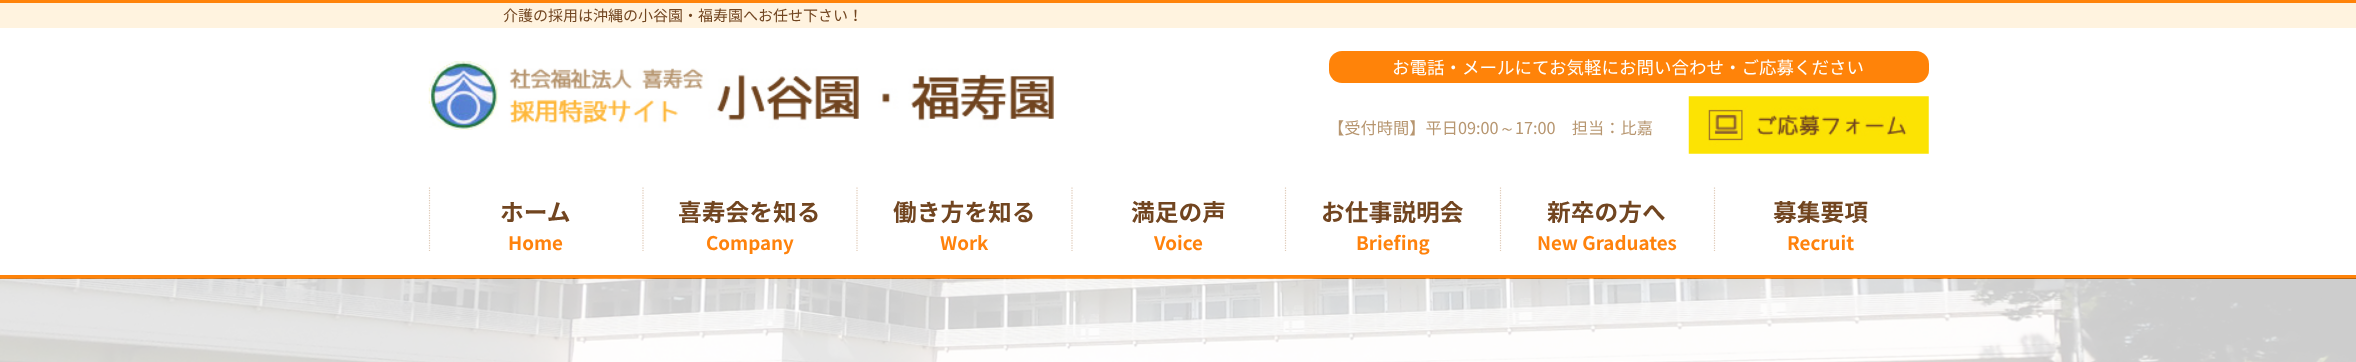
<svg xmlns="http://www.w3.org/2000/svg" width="2356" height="362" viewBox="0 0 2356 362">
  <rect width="100%" height="100%" fill="#ffffff"/>
  <rect x="0" y="0" width="2356" height="3" fill="#ff8309"/>
  <rect x="0" y="275" width="2356" height="4" fill="#ff8309"/>
  <rect x="0" y="3" width="2356" height="25" fill="#fff3df"/>
  <text x="503" y="21" font-family="Noto Sans JP" font-size="15" fill="#714520">介護の採用は沖縄の小谷園・福寿園へお任せ下さい！</text>
  <image x="428" y="61" width="626" height="69" href="img1.png"/>
  <rect x="1329" y="51" width="600" height="32" rx="13" fill="#ff8309"/>
  <text x="1392" y="74" font-family="Noto Sans JP" font-size="17.5" fill="#ffffff">お電話・メールにてお気軽にお問い合わせ・ご応募ください</text>
  <text x="1328" y="134" font-family="Noto Sans JP" font-size="16.25" fill="#b79670">【受付時間】平日09:00</text>
  <text x="1499" y="134" font-family="WenQuanYi Zen Hei" font-size="16.25" font-weight="500" fill="#b79670">～</text>
  <text x="1515" y="134" font-family="Noto Sans JP" font-size="16.25" fill="#b79670">17:00　担当：比嘉</text>
  <image x="1688" y="96" width="241" height="58" href="img2.png"/>
  <path d="M429.5 187.5V251" fill="none" stroke="#dfcab7" stroke-width="1.2" stroke-dasharray="1.25 1.25"/>
  <text x="500" y="221" font-family="Noto Sans JP" font-size="23.75" font-weight="bold" fill="#714520">ホーム</text>
  <text x="508" y="250" font-family="Noto Sans JP" font-size="18.75" font-weight="bold" fill="#ff820c">Home</text>
  <path d="M643 187.5V251" fill="none" stroke="#dfcab7" stroke-width="1.2" stroke-dasharray="1.25 1.25"/>
  <text x="678" y="221" font-family="Noto Sans JP" font-size="23.75" font-weight="bold" fill="#714520">喜寿会を知る</text>
  <text x="706" y="250" font-family="Noto Sans JP" font-size="18.75" font-weight="bold" fill="#ff820c">Company</text>
  <path d="M857 187.5V251" fill="none" stroke="#dfcab7" stroke-width="1.2" stroke-dasharray="1.25 1.25"/>
  <text x="893" y="221" font-family="Noto Sans JP" font-size="23.75" font-weight="bold" fill="#714520">働き方を知る</text>
  <text x="940" y="250" font-family="Noto Sans JP" font-size="18.75" font-weight="bold" fill="#ff820c">Work</text>
  <path d="M1072 187.5V251" fill="none" stroke="#dfcab7" stroke-width="1.2" stroke-dasharray="1.25 1.25"/>
  <text x="1131" y="221" font-family="Noto Sans JP" font-size="23.75" font-weight="bold" fill="#714520">満足の声</text>
  <text x="1154" y="250" font-family="Noto Sans JP" font-size="18.75" font-weight="bold" fill="#ff820c">Voice</text>
  <path d="M1285.5 187.5V251" fill="none" stroke="#dfcab7" stroke-width="1.2" stroke-dasharray="1.25 1.25"/>
  <text x="1321" y="221" font-family="Noto Sans JP" font-size="23.75" font-weight="bold" fill="#714520">お仕事説明会</text>
  <text x="1356" y="250" font-family="Noto Sans JP" font-size="18.75" font-weight="bold" fill="#ff820c">Briefing</text>
  <path d="M1500.5 187.5V251" fill="none" stroke="#dfcab7" stroke-width="1.2" stroke-dasharray="1.25 1.25"/>
  <text x="1547" y="221" font-family="Noto Sans JP" font-size="23.75" font-weight="bold" fill="#714520">新卒の方へ</text>
  <text x="1537" y="250" font-family="Noto Sans JP" font-size="18.75" font-weight="bold" fill="#ff820c">New Graduates</text>
  <path d="M1714.5 187.5V251" fill="none" stroke="#dfcab7" stroke-width="1.2" stroke-dasharray="1.25 1.25"/>
  <text x="1773" y="221" font-family="Noto Sans JP" font-size="23.75" font-weight="bold" fill="#714520">募集要項</text>
  <text x="1787" y="250" font-family="Noto Sans JP" font-size="18.75" font-weight="bold" fill="#ff820c">Recruit</text>
  <image x="0" y="278" width="2356" height="84" href="img3.png"/>
</svg>
